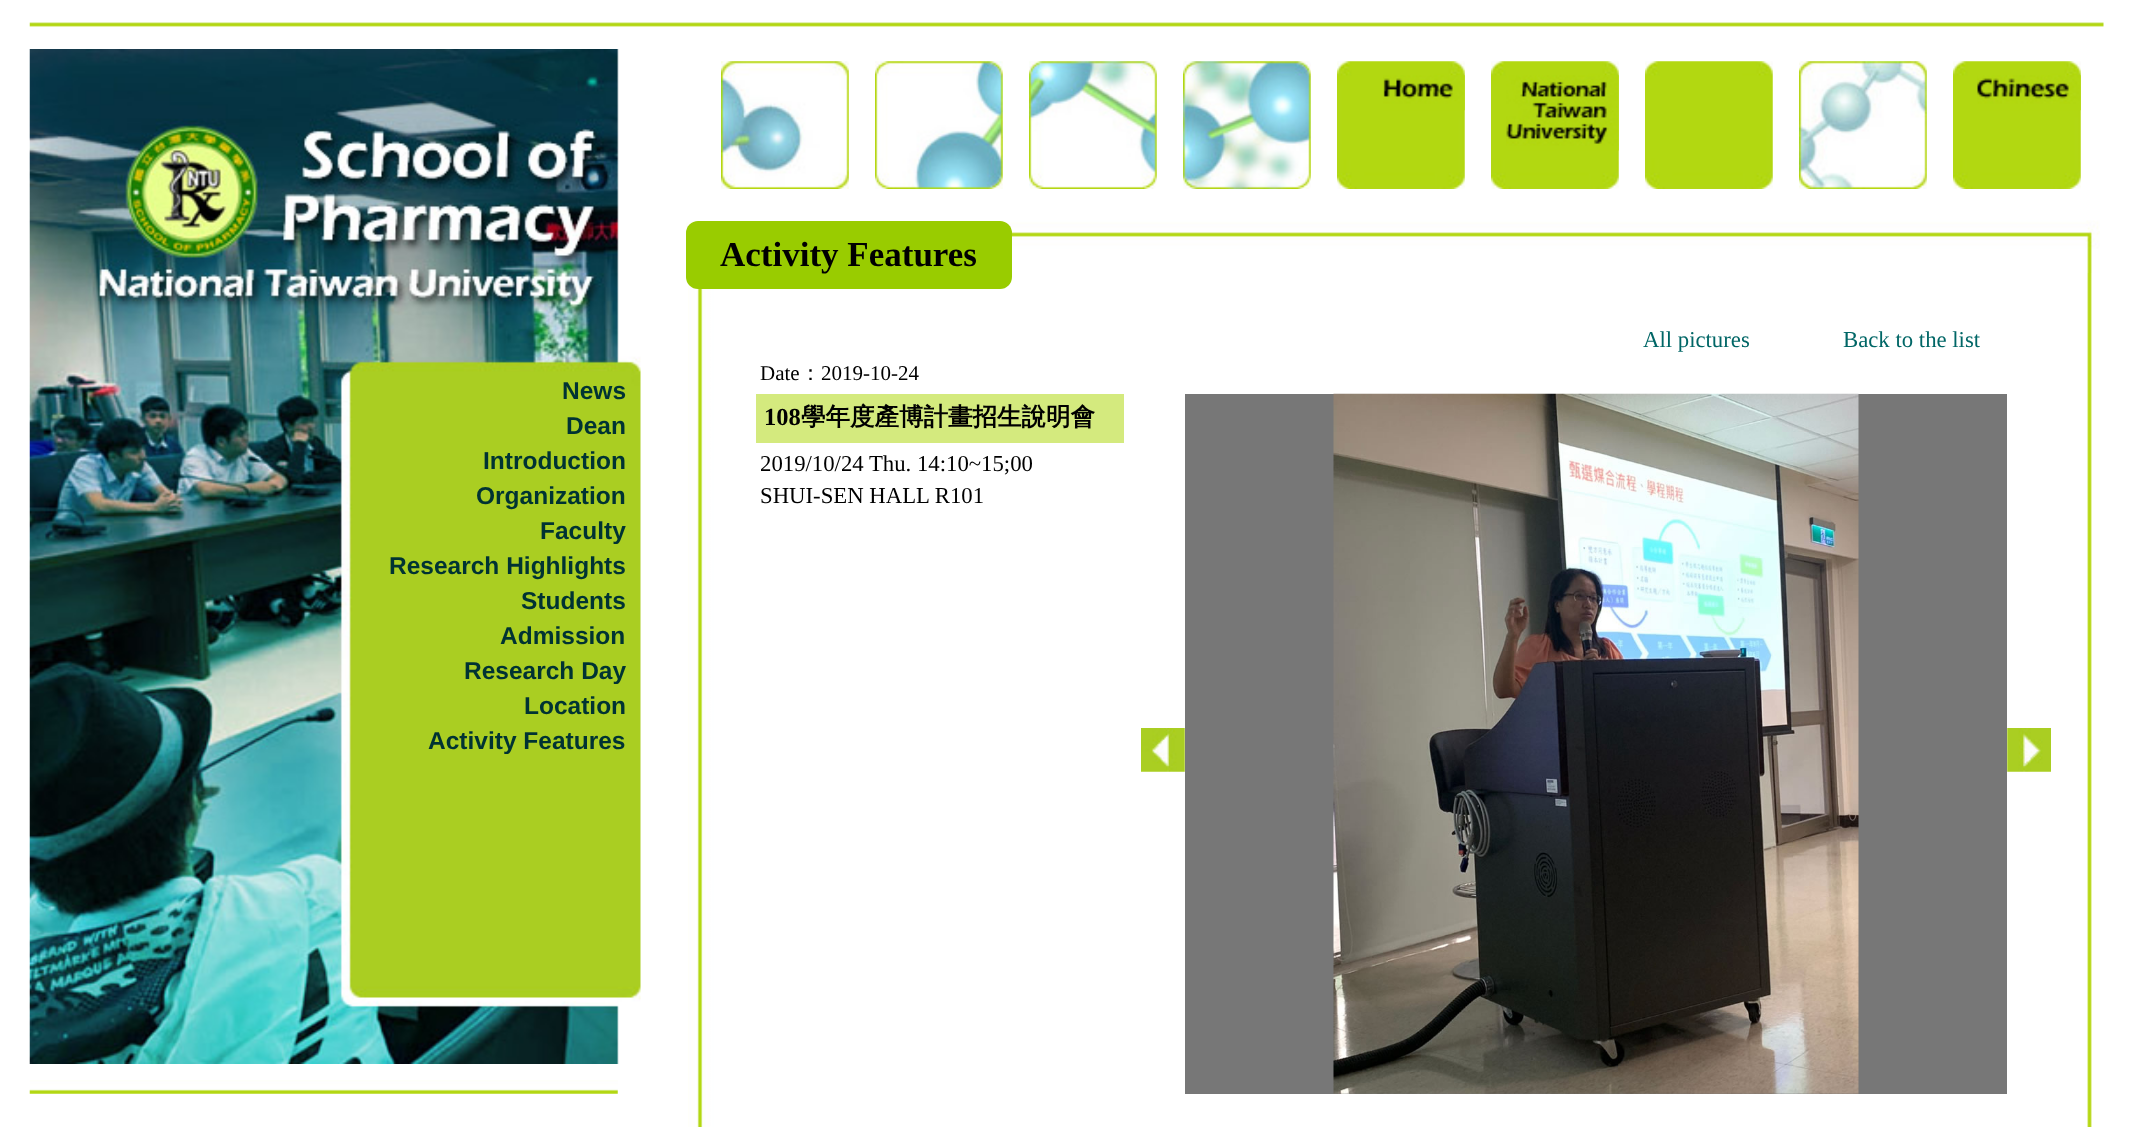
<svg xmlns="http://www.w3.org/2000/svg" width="2131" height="1127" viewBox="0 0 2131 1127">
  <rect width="100%" height="100%" fill="#ffffff"/>
  <image x="29" y="22" width="2075" height="5" href="img1.png"/>
  <image x="29" y="49" width="612" height="1015" href="img2.png"/>
  <text x="562" y="399" font-family="Liberation Sans" font-size="24.5" font-weight="bold" fill="#003333">News</text>
  <text x="566" y="434" font-family="Liberation Sans" font-size="24.5" font-weight="bold" fill="#003333">Dean</text>
  <text x="483" y="469" font-family="Liberation Sans" font-size="24.5" font-weight="bold" fill="#003333">Introduction</text>
  <text x="476" y="504" font-family="Liberation Sans" font-size="24.5" font-weight="bold" fill="#003333">Organization</text>
  <text x="540" y="539" font-family="Liberation Sans" font-size="24.5" font-weight="bold" fill="#003333">Faculty</text>
  <text x="389" y="574" font-family="Liberation Sans" font-size="24.5" font-weight="bold" fill="#003333">Research Highlights</text>
  <text x="521" y="609" font-family="Liberation Sans" font-size="24.5" font-weight="bold" fill="#003333">Students</text>
  <text x="500" y="644" font-family="Liberation Sans" font-size="24.5" font-weight="bold" fill="#003333">Admission</text>
  <text x="464" y="679" font-family="Liberation Sans" font-size="24.5" font-weight="bold" fill="#003333">Research Day</text>
  <text x="524" y="714" font-family="Liberation Sans" font-size="24.5" font-weight="bold" fill="#003333">Location</text>
  <text x="428" y="749" font-family="Liberation Sans" font-size="24.5" font-weight="bold" fill="#003333">Activity Features</text>
  <image x="29" y="1080" width="589" height="14" href="img3.png"/>
  <image x="721" y="61" width="128" height="128" href="img4.png"/>
  <image x="875" y="61" width="128" height="128" href="img5.png"/>
  <image x="1029" y="61" width="128" height="128" href="img6.png"/>
  <image x="1183" y="61" width="128" height="128" href="img7.png"/>
  <image x="1337" y="61" width="128" height="128" href="img8.png"/>
  <image x="1383" y="75" width="82" height="36" href="img9.png"/>
  <image x="1491" y="61" width="128" height="128" href="img10.png"/>
  <image x="1506" y="75" width="113" height="76" href="img11.png"/>
  <image x="1645" y="61" width="128" height="128" href="img10.png"/>
  <image x="1799" y="61" width="128" height="128" href="img12.png"/>
  <image x="1953" y="61" width="128" height="128" href="img10.png"/>
  <image x="1977" y="75" width="104" height="36" href="img13.png"/>
  <image x="686" y="220" width="1414" height="53" href="img14.png"/>
  <image x="688" y="273" width="1404" height="854" href="img15.png"/>
  <rect x="686" y="221" width="326" height="68" rx="12" fill="#99cc00"/>
  <text x="720" y="266" font-family="Liberation Serif" font-size="35" font-weight="bold" fill="#000000">Activity Features</text>
  <text x="1643" y="347" font-family="Liberation Serif" font-size="22.75" fill="#006666">All pictures</text>
  <text x="1843" y="347" font-family="Liberation Serif" font-size="22.75" fill="#006666">Back to the list</text>
  <text x="760" y="380" font-family="Liberation Serif" font-size="21" fill="#000000">Date</text>
  <text x="800" y="380" font-family="WenQuanYi Zen Hei" font-size="21" font-weight="500" fill="#000000">：</text>
  <text x="821" y="380" font-family="Liberation Serif" font-size="21" fill="#000000">2019-10-24</text>
  <rect x="756" y="394" width="368" height="49" fill="#d4ea7e"/>
  <text x="764" y="425" font-family="Liberation Serif" font-size="24.5" font-weight="bold" fill="#000000">108</text>
  <text x="801" y="425" font-family="WenQuanYi Zen Hei" font-size="24.5" font-weight="bold" fill="#000000">學年度產博計畫招生說明會</text>
  <text x="760" y="471" font-family="Liberation Serif" font-size="22.75" fill="#000000">2019/10/24 Thu. 14:10~15;00</text>
  <text x="760" y="503" font-family="Liberation Serif" font-size="22.75" fill="#000000">SHUI-SEN HALL R101</text>
  <image x="1141" y="728" width="44" height="44" href="img16.png"/>
  <rect x="1185" y="394" width="822" height="700" fill="#777777"/>
  <image x="1333" y="393" width="526" height="701" href="img17.png"/>
  <image x="2007" y="728" width="44" height="44" href="img18.png"/>
</svg>
